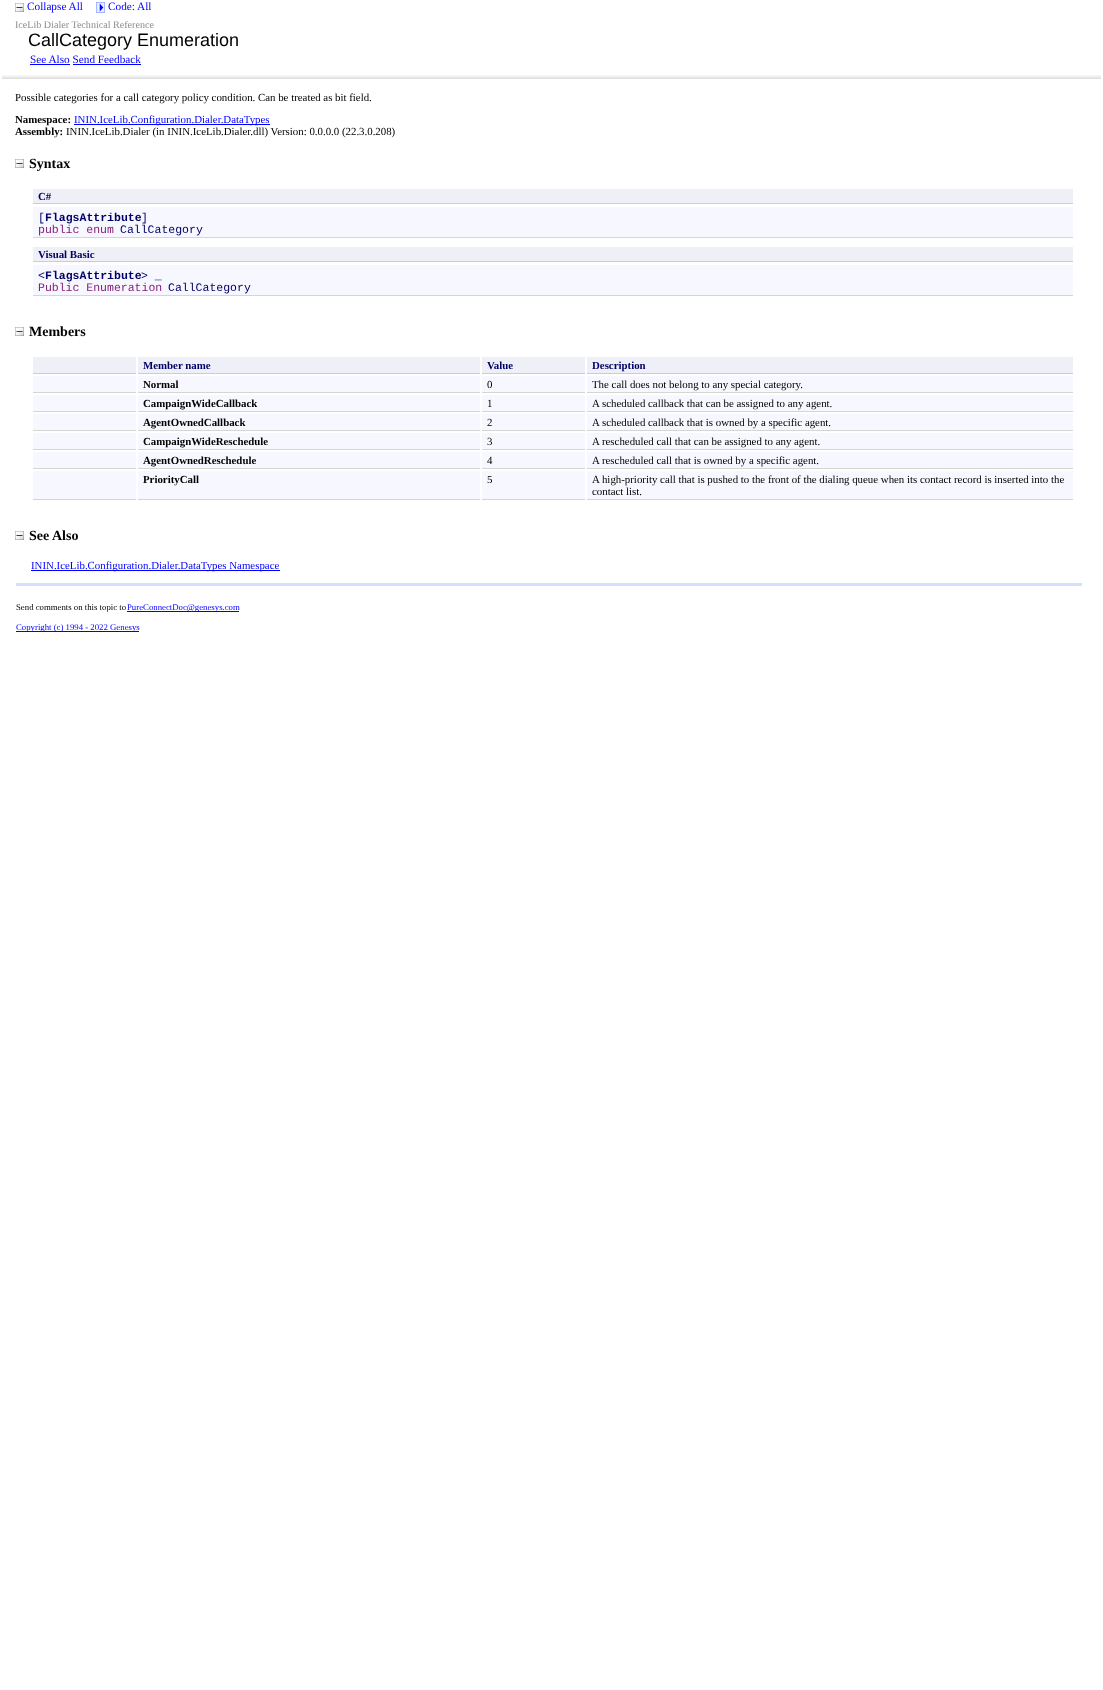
<svg xmlns="http://www.w3.org/2000/svg" width="1103" height="1690" viewBox="0 0 1103 1690">
  <rect width="100%" height="100%" fill="#ffffff"/>
  <image x="15" y="3" width="9" height="9" href="img1.png"/>
  <text x="27" y="10" font-family="Liberation Serif" font-size="11.25" fill="#0000ff">Collapse All</text>
  <image x="96" y="2" width="9" height="11" href="img2.png"/>
  <text x="108" y="10" font-family="Liberation Serif" font-size="11.25" fill="#0000ff">Code: All</text>
  <text x="15" y="28" font-family="Liberation Serif" font-size="10.1" fill="#8c8c8c">IceLib Dialer Technical Reference</text>
  <text x="28" y="46" font-family="Liberation Sans" font-size="18" fill="#000000">CallCategory Enumeration</text>
  <text x="30" y="63" font-family="Liberation Serif" font-size="11.25" fill="#0000ff">See Also Send Feedback</text>
  <rect x="30" y="64" width="40" height="1" fill="#0000ff"/>
  <rect x="73" y="64" width="68" height="1" fill="#0000ff"/>
  <image x="2" y="75" width="1099" height="4" href="img3.png"/>
  <text x="15" y="101" font-family="Liberation Serif" font-size="10.85" fill="#000000">Possible categories for a call category policy condition. Can be treated as bit field.</text>
  <text x="15" y="123" font-family="Liberation Serif" font-size="10.85" font-weight="bold" fill="#000000">Namespace:</text>
  <rect x="74" y="124" width="196" height="1" fill="#0000ff"/>
  <text x="74" y="123" font-family="Liberation Serif" font-size="10.85" fill="#0000ff">ININ.IceLib.Configuration.Dialer.DataTypes</text>
  <text x="15" y="135" font-family="Liberation Serif" font-size="10.85" font-weight="bold" fill="#000000">Assembly:</text>
  <text x="66" y="135" font-family="Liberation Serif" font-size="10.85" fill="#000000">ININ.IceLib.Dialer (in ININ.IceLib.Dialer.dll) Version: 0.0.0.0 (22.3.0.208)</text>
  <image x="15" y="159" width="9" height="9" href="img1.png"/>
  <text x="29" y="168" font-family="Liberation Serif" font-size="14" font-weight="bold" fill="#000000">Syntax</text>
  <rect x="33" y="189" width="1040" height="14" fill="#efeff7"/>
  <rect x="33" y="203" width="1040" height="1" fill="#c8cdde"/>
  <text x="38" y="200" font-family="Liberation Serif" font-size="10.85" font-weight="bold" fill="#000066">C#</text>
  <rect x="33" y="207" width="1040" height="30" fill="#f7f7ff"/>
  <rect x="33" y="237" width="1040" height="1" fill="#d5d5d3"/>
  <text x="38" y="221" font-family="Liberation Mono" font-size="11.5" fill="#000066">[</text>
  <text x="45" y="221" font-family="Liberation Mono" font-size="11.5" font-weight="bold" fill="#000066">FlagsAttribute</text>
  <text x="141" y="221" font-family="Liberation Mono" font-size="11.5" fill="#000066">]</text>
  <text x="38" y="233" font-family="Liberation Mono" font-size="11.5" fill="#871f78">public enum</text>
  <text x="120" y="233" font-family="Liberation Mono" font-size="11.5" fill="#000066">CallCategory</text>
  <rect x="33" y="247" width="1040" height="14" fill="#efeff7"/>
  <rect x="33" y="261" width="1040" height="1" fill="#c8cdde"/>
  <text x="38" y="258" font-family="Liberation Serif" font-size="10.85" font-weight="bold" fill="#000066">Visual Basic</text>
  <rect x="33" y="265" width="1040" height="30" fill="#f7f7ff"/>
  <rect x="33" y="295" width="1040" height="1" fill="#d5d5d3"/>
  <text x="38" y="279" font-family="Liberation Mono" font-size="11.5" fill="#000066">&lt;</text>
  <text x="45" y="279" font-family="Liberation Mono" font-size="11.5" font-weight="bold" fill="#000066">FlagsAttribute</text>
  <text x="141" y="279" font-family="Liberation Mono" font-size="11.5" fill="#000066">&gt; _</text>
  <text x="38" y="291" font-family="Liberation Mono" font-size="11.5" fill="#871f78">Public Enumeration</text>
  <text x="168" y="291" font-family="Liberation Mono" font-size="11.5" fill="#000066">CallCategory</text>
  <image x="15" y="327" width="9" height="9" href="img1.png"/>
  <text x="29" y="336" font-family="Liberation Serif" font-size="14" font-weight="bold" fill="#000000">Members</text>
  <rect x="33" y="357" width="103" height="16" fill="#efeff7"/>
  <rect x="33" y="373" width="103" height="1" fill="#c8cdde"/>
  <rect x="138" y="357" width="342" height="16" fill="#efeff7"/>
  <rect x="138" y="373" width="342" height="1" fill="#c8cdde"/>
  <text x="143" y="369" font-family="Liberation Serif" font-size="10.85" font-weight="bold" fill="#000066">Member name</text>
  <rect x="482" y="357" width="103" height="16" fill="#efeff7"/>
  <rect x="482" y="373" width="103" height="1" fill="#c8cdde"/>
  <text x="487" y="369" font-family="Liberation Serif" font-size="10.85" font-weight="bold" fill="#000066">Value</text>
  <rect x="587" y="357" width="486" height="16" fill="#efeff7"/>
  <rect x="587" y="373" width="486" height="1" fill="#c8cdde"/>
  <text x="592" y="369" font-family="Liberation Serif" font-size="10.85" font-weight="bold" fill="#000066">Description</text>
  <rect x="33" y="376" width="103" height="16" fill="#f7f7ff"/>
  <rect x="33" y="392" width="103" height="1" fill="#d5d5d3"/>
  <rect x="138" y="376" width="342" height="16" fill="#f7f7ff"/>
  <rect x="138" y="392" width="342" height="1" fill="#d5d5d3"/>
  <text x="143" y="388" font-family="Liberation Serif" font-size="10.85" font-weight="bold" fill="#000000">Normal</text>
  <rect x="482" y="376" width="103" height="16" fill="#f7f7ff"/>
  <rect x="482" y="392" width="103" height="1" fill="#d5d5d3"/>
  <text x="487" y="388" font-family="Liberation Serif" font-size="10.85" fill="#000000">0</text>
  <rect x="587" y="376" width="486" height="16" fill="#f7f7ff"/>
  <rect x="587" y="392" width="486" height="1" fill="#d5d5d3"/>
  <text x="592" y="388" font-family="Liberation Serif" font-size="10.85" fill="#000000">The call does not belong to any special category.</text>
  <rect x="33" y="395" width="103" height="16" fill="#f7f7ff"/>
  <rect x="33" y="411" width="103" height="1" fill="#d5d5d3"/>
  <rect x="138" y="395" width="342" height="16" fill="#f7f7ff"/>
  <rect x="138" y="411" width="342" height="1" fill="#d5d5d3"/>
  <text x="143" y="407" font-family="Liberation Serif" font-size="10.85" font-weight="bold" fill="#000000">CampaignWideCallback</text>
  <rect x="482" y="395" width="103" height="16" fill="#f7f7ff"/>
  <rect x="482" y="411" width="103" height="1" fill="#d5d5d3"/>
  <text x="487" y="407" font-family="Liberation Serif" font-size="10.85" fill="#000000">1</text>
  <rect x="587" y="395" width="486" height="16" fill="#f7f7ff"/>
  <rect x="587" y="411" width="486" height="1" fill="#d5d5d3"/>
  <text x="592" y="407" font-family="Liberation Serif" font-size="10.85" fill="#000000">A scheduled callback that can be assigned to any agent.</text>
  <rect x="33" y="414" width="103" height="16" fill="#f7f7ff"/>
  <rect x="33" y="430" width="103" height="1" fill="#d5d5d3"/>
  <rect x="138" y="414" width="342" height="16" fill="#f7f7ff"/>
  <rect x="138" y="430" width="342" height="1" fill="#d5d5d3"/>
  <text x="143" y="426" font-family="Liberation Serif" font-size="10.85" font-weight="bold" fill="#000000">AgentOwnedCallback</text>
  <rect x="482" y="414" width="103" height="16" fill="#f7f7ff"/>
  <rect x="482" y="430" width="103" height="1" fill="#d5d5d3"/>
  <text x="487" y="426" font-family="Liberation Serif" font-size="10.85" fill="#000000">2</text>
  <rect x="587" y="414" width="486" height="16" fill="#f7f7ff"/>
  <rect x="587" y="430" width="486" height="1" fill="#d5d5d3"/>
  <text x="592" y="426" font-family="Liberation Serif" font-size="10.85" fill="#000000">A scheduled callback that is owned by a specific agent.</text>
  <rect x="33" y="433" width="103" height="16" fill="#f7f7ff"/>
  <rect x="33" y="449" width="103" height="1" fill="#d5d5d3"/>
  <rect x="138" y="433" width="342" height="16" fill="#f7f7ff"/>
  <rect x="138" y="449" width="342" height="1" fill="#d5d5d3"/>
  <text x="143" y="445" font-family="Liberation Serif" font-size="10.85" font-weight="bold" fill="#000000">CampaignWideReschedule</text>
  <rect x="482" y="433" width="103" height="16" fill="#f7f7ff"/>
  <rect x="482" y="449" width="103" height="1" fill="#d5d5d3"/>
  <text x="487" y="445" font-family="Liberation Serif" font-size="10.85" fill="#000000">3</text>
  <rect x="587" y="433" width="486" height="16" fill="#f7f7ff"/>
  <rect x="587" y="449" width="486" height="1" fill="#d5d5d3"/>
  <text x="592" y="445" font-family="Liberation Serif" font-size="10.85" fill="#000000">A rescheduled call that can be assigned to any agent.</text>
  <rect x="33" y="452" width="103" height="16" fill="#f7f7ff"/>
  <rect x="33" y="468" width="103" height="1" fill="#d5d5d3"/>
  <rect x="138" y="452" width="342" height="16" fill="#f7f7ff"/>
  <rect x="138" y="468" width="342" height="1" fill="#d5d5d3"/>
  <text x="143" y="464" font-family="Liberation Serif" font-size="10.85" font-weight="bold" fill="#000000">AgentOwnedReschedule</text>
  <rect x="482" y="452" width="103" height="16" fill="#f7f7ff"/>
  <rect x="482" y="468" width="103" height="1" fill="#d5d5d3"/>
  <text x="487" y="464" font-family="Liberation Serif" font-size="10.85" fill="#000000">4</text>
  <rect x="587" y="452" width="486" height="16" fill="#f7f7ff"/>
  <rect x="587" y="468" width="486" height="1" fill="#d5d5d3"/>
  <text x="592" y="464" font-family="Liberation Serif" font-size="10.85" fill="#000000">A rescheduled call that is owned by a specific agent.</text>
  <rect x="33" y="471" width="103" height="28" fill="#f7f7ff"/>
  <rect x="33" y="499" width="103" height="1" fill="#d5d5d3"/>
  <rect x="138" y="471" width="342" height="28" fill="#f7f7ff"/>
  <rect x="138" y="499" width="342" height="1" fill="#d5d5d3"/>
  <text x="143" y="483" font-family="Liberation Serif" font-size="10.85" font-weight="bold" fill="#000000">PriorityCall</text>
  <rect x="482" y="471" width="103" height="28" fill="#f7f7ff"/>
  <rect x="482" y="499" width="103" height="1" fill="#d5d5d3"/>
  <text x="487" y="483" font-family="Liberation Serif" font-size="10.85" fill="#000000">5</text>
  <rect x="587" y="471" width="486" height="28" fill="#f7f7ff"/>
  <rect x="587" y="499" width="486" height="1" fill="#d5d5d3"/>
  <text x="592" y="483" font-family="Liberation Serif" font-size="10.85" fill="#000000">A high-priority call that is pushed to the front of the dialing queue when its contact record is inserted into the</text>
  <text x="592" y="495" font-family="Liberation Serif" font-size="10.85" fill="#000000">contact list.</text>
  <image x="15" y="531" width="9" height="9" href="img1.png"/>
  <text x="29" y="540" font-family="Liberation Serif" font-size="14" font-weight="bold" fill="#000000">See Also</text>
  <rect x="31" y="570" width="249" height="1" fill="#0000ff"/>
  <text x="31" y="569" font-family="Liberation Serif" font-size="10.85" fill="#0000ff">ININ.IceLib.Configuration.Dialer.DataTypes Namespace</text>
  <rect x="16" y="583" width="1066" height="3" fill="#d4dfff"/>
  <text x="16" y="610" font-family="Liberation Serif" font-size="8.75" fill="#000000">Send comments on this topic to</text>
  <rect x="127" y="611" width="112" height="1" fill="#0000ff"/>
  <text x="127" y="610" font-family="Liberation Serif" font-size="8.75" fill="#0000ff">PureConnectDoc@genesys.com</text>
  <rect x="16" y="631" width="123" height="1" fill="#0000ff"/>
  <text x="16" y="630" font-family="Liberation Serif" font-size="8.75" fill="#0000ff">Copyright (c) 1994 - 2022 Genesys</text>
</svg>
